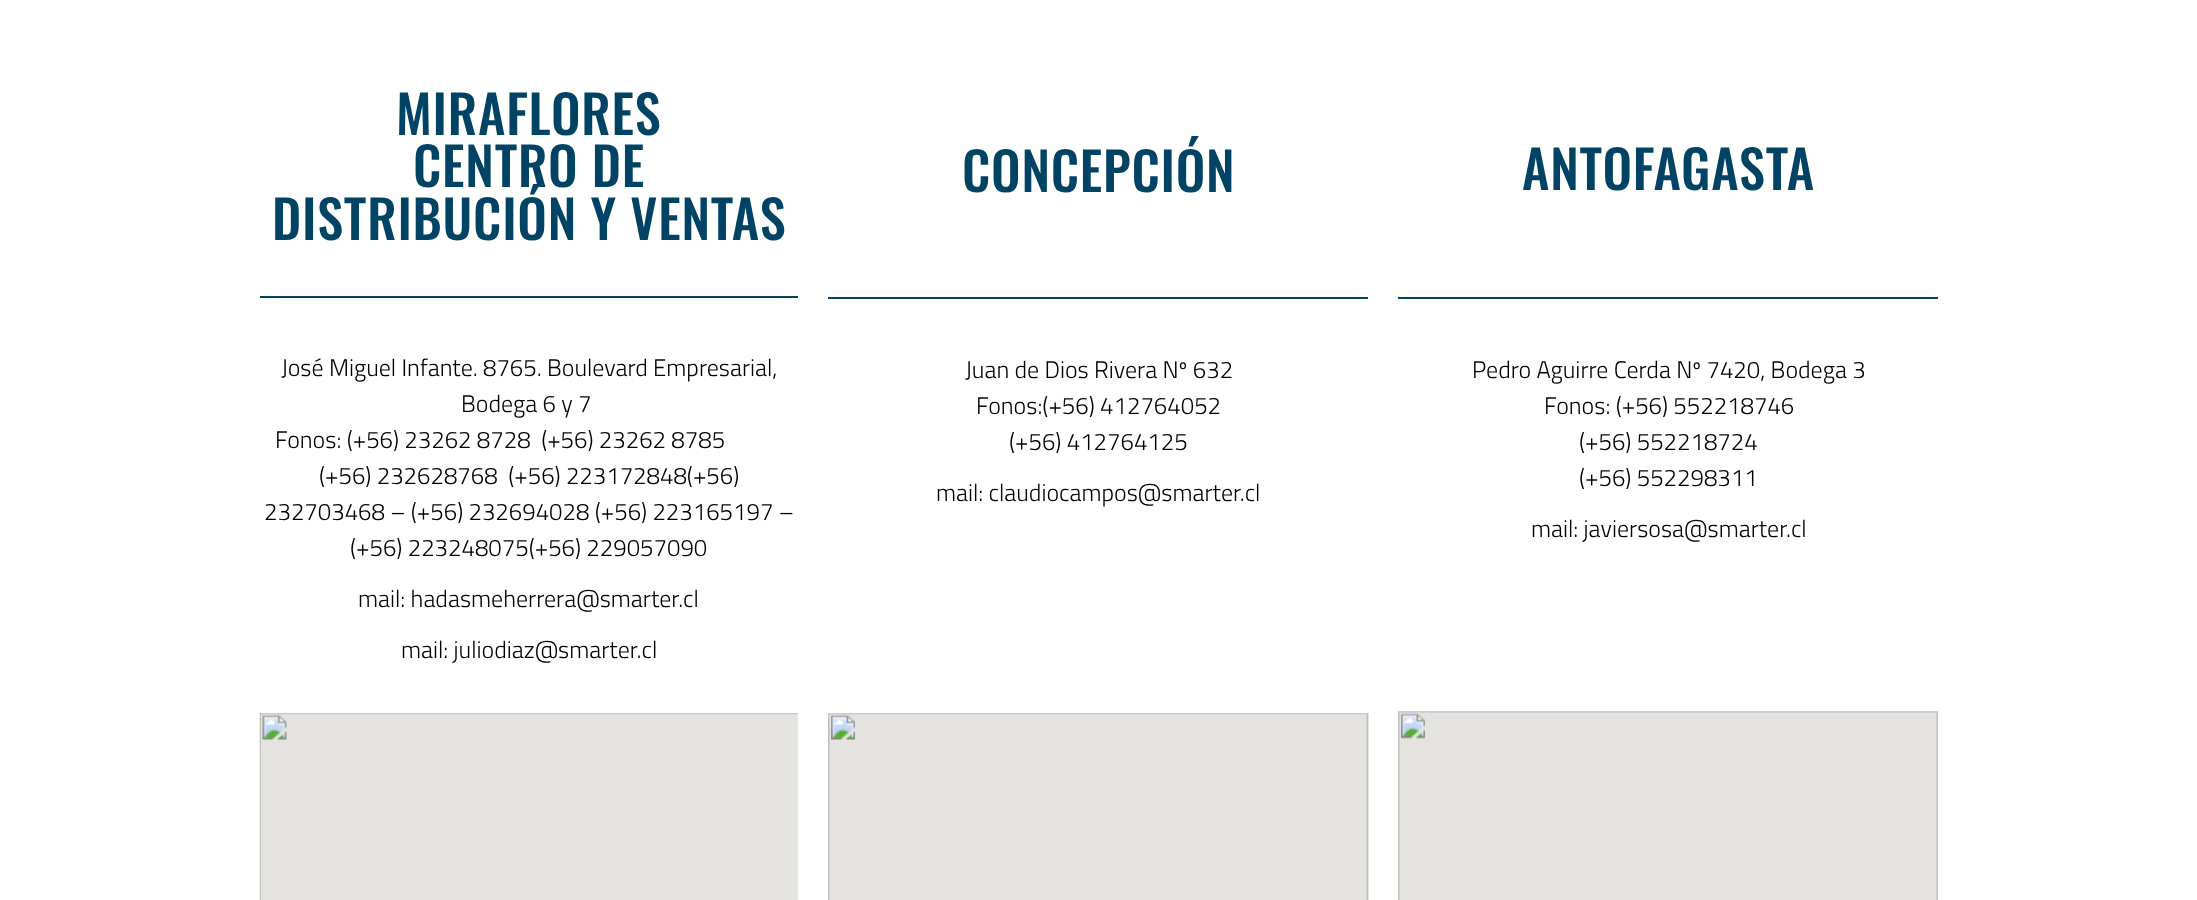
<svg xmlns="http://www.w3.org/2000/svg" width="2197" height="900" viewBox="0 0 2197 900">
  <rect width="100%" height="100%" fill="#ffffff"/>
  <text x="396" y="135" font-family="Oswald" font-size="52.5" font-weight="500" letter-spacing="0.75" fill="#004365">MIRAFLORES</text>
  <text x="413" y="187" font-family="Oswald" font-size="52.5" font-weight="500" letter-spacing="0.75" fill="#004365">CENTRO DE</text>
  <text x="272" y="240" font-family="Oswald" font-size="52.5" font-weight="500" letter-spacing="0.75" fill="#004365">DISTRIBUCIÓN Y VENTAS</text>
  <rect x="260" y="296" width="538" height="2" fill="#004365"/>
  <text x="281" y="376" font-family="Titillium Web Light" font-size="24" font-weight="300" fill="#000000">José Miguel Infante. 8765. Boulevard Empresarial,</text>
  <text x="461" y="412" font-family="Titillium Web Light" font-size="24" font-weight="300" fill="#000000">Bodega 6 y 7</text>
  <text x="275" y="448" font-family="Titillium Web Light" font-size="24" font-weight="300" fill="#000000" xml:space="preserve">Fonos: (+56) 23262 8728  (+56) 23262 8785</text>
  <text x="319" y="484" font-family="Titillium Web Light" font-size="24" font-weight="300" fill="#000000" xml:space="preserve">(+56) 232628768  (+56) 223172848(+56)</text>
  <text x="264" y="520" font-family="Titillium Web Light" font-size="24" font-weight="300" fill="#000000">232703468 – (+56) 232694028 (+56) 223165197 –</text>
  <text x="350" y="556" font-family="Titillium Web Light" font-size="24" font-weight="300" fill="#000000">(+56) 223248075(+56) 229057090</text>
  <text x="358" y="607" font-family="Titillium Web Light" font-size="24" font-weight="300" fill="#000000">mail: hadasmeherrera@smarter.cl</text>
  <text x="401" y="658" font-family="Titillium Web Light" font-size="24" font-weight="300" fill="#000000">mail: juliodiaz@smarter.cl</text>
  <image x="259" y="712" width="539" height="188" href="img1.png"/>
  <text x="962" y="192" font-family="Oswald" font-size="52.5" font-weight="500" letter-spacing="0.75" fill="#004365">CONCEPCIÓN</text>
  <rect x="828" y="297" width="540" height="2" fill="#004365"/>
  <text x="965" y="378" font-family="Titillium Web Light" font-size="24" font-weight="300" fill="#000000">Juan de Dios Rivera Nº 632</text>
  <text x="976" y="414" font-family="Titillium Web Light" font-size="24" font-weight="300" fill="#000000">Fonos:(+56) 412764052</text>
  <text x="1009" y="450" font-family="Titillium Web Light" font-size="24" font-weight="300" fill="#000000">(+56) 412764125</text>
  <text x="936" y="501" font-family="Titillium Web Light" font-size="24" font-weight="300" fill="#000000">mail: claudiocampos@smarter.cl</text>
  <image x="828" y="713" width="541" height="187" href="img2.png"/>
  <text x="1522" y="190" font-family="Oswald" font-size="52.5" font-weight="500" letter-spacing="0.75" fill="#004365">ANTOFAGASTA</text>
  <rect x="1398" y="297" width="540" height="2" fill="#004365"/>
  <text x="1472" y="378" font-family="Titillium Web Light" font-size="24" font-weight="300" fill="#000000">Pedro Aguirre Cerda Nº 7420, Bodega 3</text>
  <text x="1544" y="414" font-family="Titillium Web Light" font-size="24" font-weight="300" fill="#000000">Fonos: (+56) 552218746</text>
  <text x="1579" y="450" font-family="Titillium Web Light" font-size="24" font-weight="300" fill="#000000">(+56) 552218724</text>
  <text x="1579" y="486" font-family="Titillium Web Light" font-size="24" font-weight="300" fill="#000000">(+56) 552298311</text>
  <text x="1531" y="537" font-family="Titillium Web Light" font-size="24" font-weight="300" fill="#000000">mail: javiersosa@smarter.cl</text>
  <image x="1398" y="711" width="540" height="189" href="img3.png"/>
</svg>
